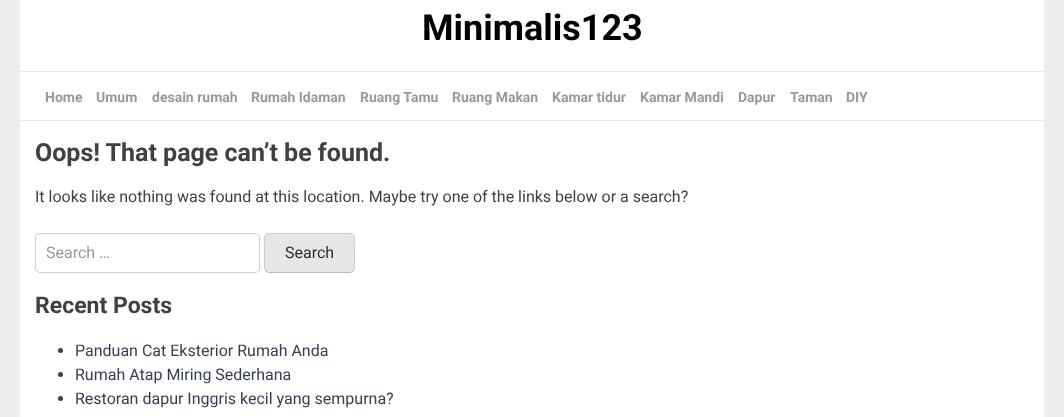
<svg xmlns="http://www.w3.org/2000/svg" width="1064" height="417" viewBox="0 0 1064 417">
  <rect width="100%" height="100%" fill="#eeeeee"/>
  <rect x="20" y="0" width="1024" height="417" fill="#ffffff"/>
  <text x="422" y="40" font-family="Roboto" font-size="36" font-weight="bold" fill="#000000">Minimalis123</text>
  <rect x="20" y="71" width="1024" height="1" fill="#e8e8e8"/>
  <rect x="20" y="120" width="1024" height="1" fill="#e8e8e8"/>
  <text x="45" y="102" font-family="Roboto" font-size="14" font-weight="bold" fill="#999999">Home</text>
  <text x="96" y="102" font-family="Roboto" font-size="14" font-weight="bold" fill="#999999">Umum</text>
  <text x="152" y="102" font-family="Roboto" font-size="14" font-weight="bold" fill="#999999">desain rumah</text>
  <text x="251" y="102" font-family="Roboto" font-size="14" font-weight="bold" fill="#999999">Rumah Idaman</text>
  <text x="360" y="102" font-family="Roboto" font-size="14" font-weight="bold" fill="#999999">Ruang Tamu</text>
  <text x="452" y="102" font-family="Roboto" font-size="14" font-weight="bold" fill="#999999">Ruang Makan</text>
  <text x="552" y="102" font-family="Roboto" font-size="14" font-weight="bold" fill="#999999">Kamar tidur</text>
  <text x="640" y="102" font-family="Roboto" font-size="14" font-weight="bold" fill="#999999">Kamar Mandi</text>
  <text x="738" y="102" font-family="Roboto" font-size="14" font-weight="bold" fill="#999999">Dapur</text>
  <text x="790" y="102" font-family="Roboto" font-size="14" font-weight="bold" fill="#999999">Taman</text>
  <text x="846" y="102" font-family="Roboto" font-size="14" font-weight="bold" fill="#999999">DIY</text>
  <text x="35" y="161" font-family="Roboto" font-size="25" font-weight="bold" fill="#404040">Oops! That page can’t be found.</text>
  <text x="35" y="202" font-family="Roboto" font-size="16" fill="#404040">It looks like nothing was found at this location. Maybe try one of the links below or a search?</text>
  <rect x="35.5" y="233.5" width="224" height="39" rx="4.5" fill="none" stroke="#cccccc"/>
  <text x="46" y="258" font-family="Roboto" font-size="16" fill="#999999">Search …</text>
  <rect x="264" y="233" width="91" height="40" rx="5" fill="#e6e6e6"/>
  <path d="M353 271L350.5 272.5H268.5L266 271" fill="none" stroke="#bbbbbb"/>
  <path d="M266 271C264 269 264.5 265.5 264.5 263V253C264.5 231.5 261 233.5 282.5 233.5H336.5C358 233.5 354.5 231.5 354.5 253V263C354.5 265.5 355 269 353 271" fill="none" stroke="#cccccc"/>
  <text x="285" y="258" font-family="Roboto" font-size="16" fill="#2e2e2e">Search</text>
  <text x="35" y="313" font-family="Roboto" font-size="23" font-weight="bold" fill="#404040">Recent Posts</text>
  <circle cx="60.5" cy="350.5" r="2.5" fill="#404040"/>
  <text x="75" y="356" font-family="Roboto" font-size="16" fill="#333f50">Panduan Cat Eksterior Rumah Anda</text>
  <circle cx="60.5" cy="374.5" r="2.5" fill="#404040"/>
  <text x="75" y="380" font-family="Roboto" font-size="16" fill="#333f50">Rumah Atap Miring Sederhana</text>
  <circle cx="60.5" cy="398.5" r="2.5" fill="#404040"/>
  <text x="75" y="404" font-family="Roboto" font-size="16" fill="#333f50">Restoran dapur Inggris kecil yang sempurna?</text>
</svg>
